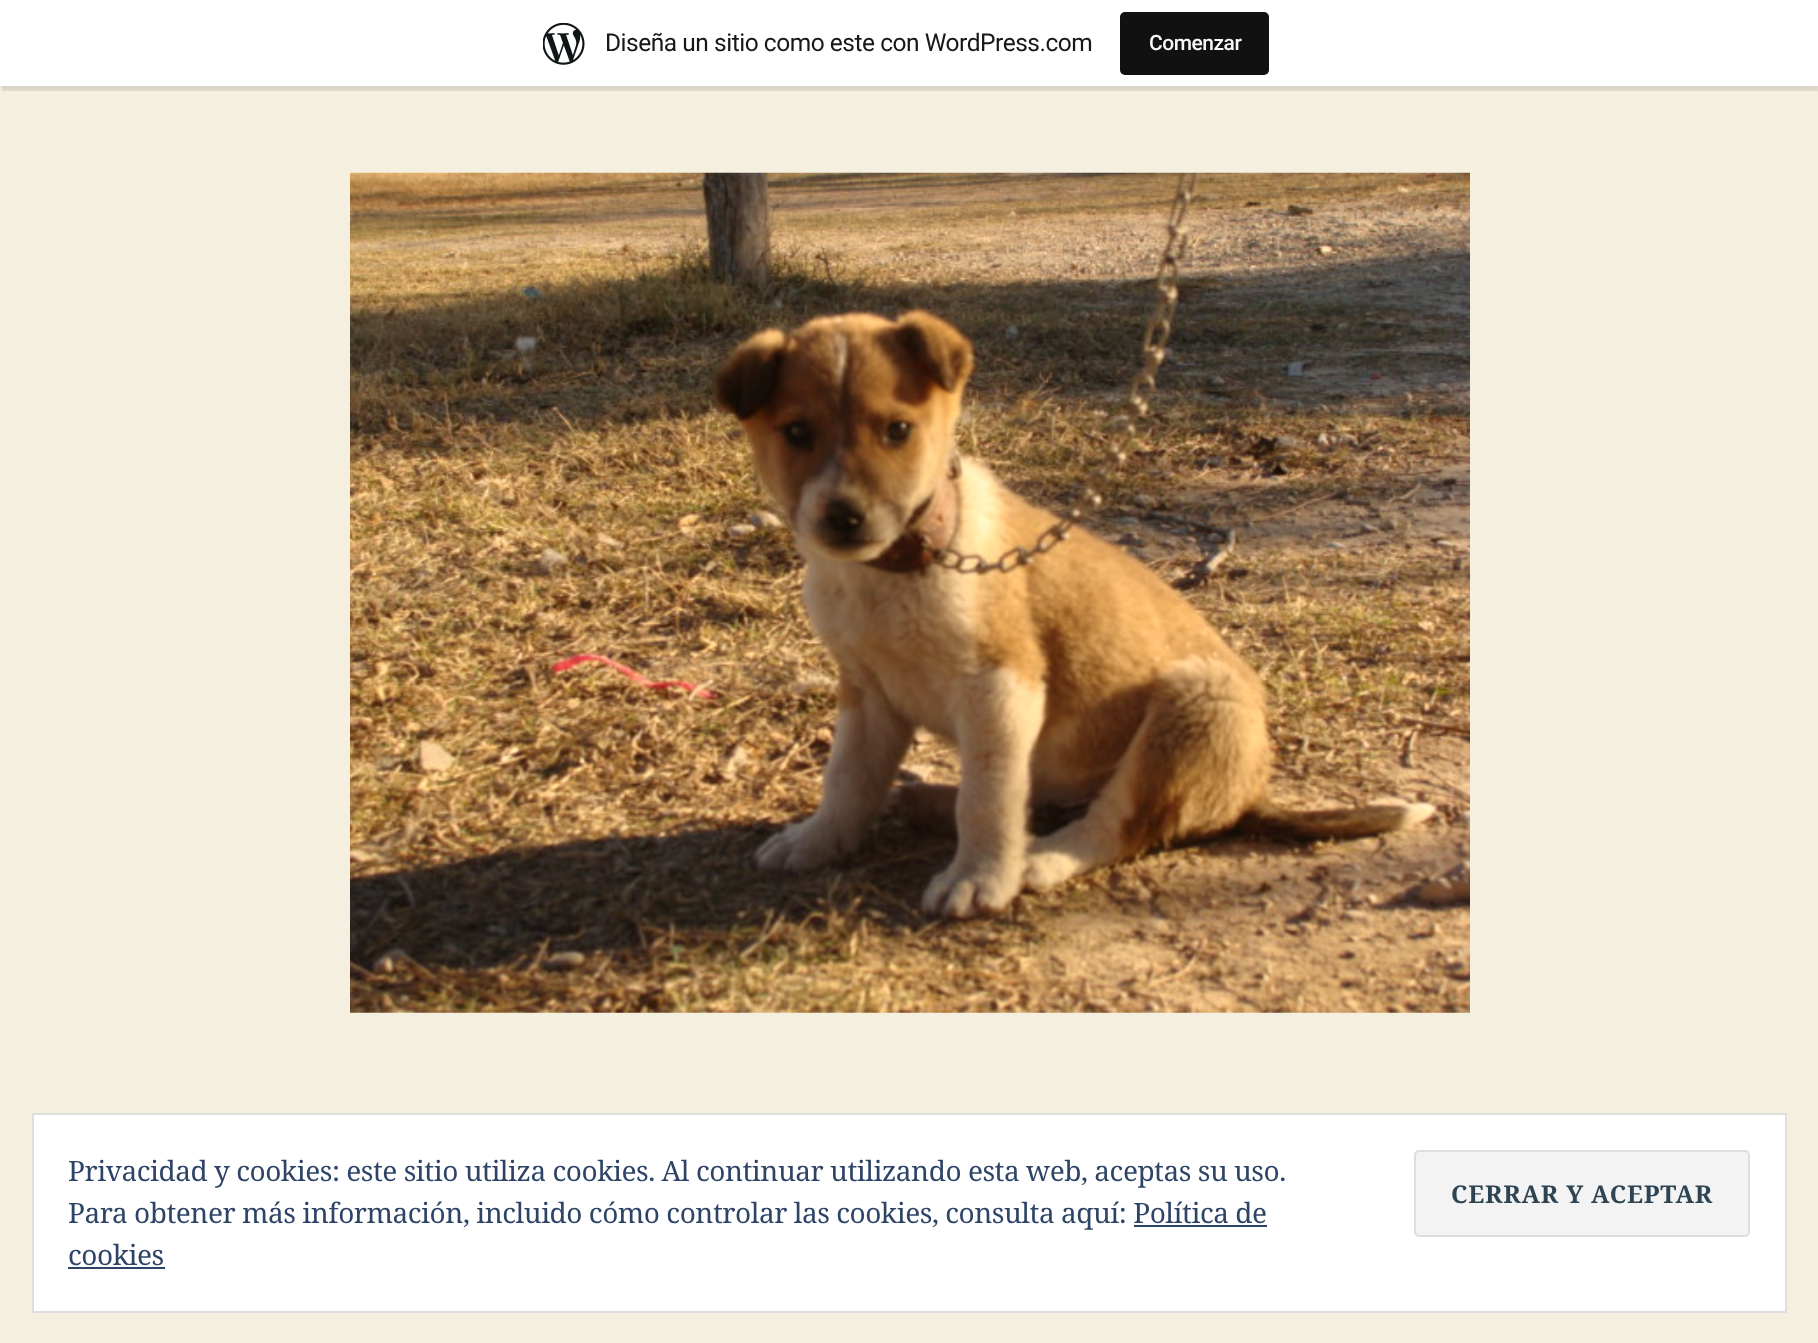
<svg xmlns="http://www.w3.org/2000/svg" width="1818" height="1343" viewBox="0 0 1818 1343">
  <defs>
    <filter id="blur1" x="-50%" y="-200%" width="200%" height="500%"><feGaussianBlur stdDeviation="2"/></filter>
  </defs>
  <rect width="100%" height="100%" fill="#f5efe0"/>
  <rect x="0" y="2" width="1818" height="86" fill="#000000" fill-opacity="0.05" filter="url(#blur1)"/>
  <path d="M2 86V91H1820V5H1818V86Z" fill="#000000" fill-opacity="0.08"/>
  <rect x="0" y="0" width="1818" height="86" fill="#ffffff"/>
  <image x="543" y="23" width="42" height="42" href="img1.png"/>
  <text x="605" y="51" font-family="Roboto" font-size="24.5" letter-spacing="-0.47" fill="#171717">Diseña un sitio como este con WordPress.com</text>
  <rect x="1120" y="12" width="149" height="63" rx="5" fill="#111111"/>
  <text x="1149" y="50" font-family="Roboto" font-size="21" font-weight="500" letter-spacing="-0.47" fill="#f6f7f7">Comenzar</text>
  <image x="350" y="172" width="1120" height="841" href="img2.png"/>
  <rect x="33" y="1114" width="1753" height="198" fill="#ffffff" stroke="#dedede" stroke-width="2"/>
  <text x="68" y="1181" font-family="Noto Serif" font-size="28" letter-spacing="-0.47" fill="#2e4467">Privacidad y cookies: este sitio utiliza cookies. Al continuar utilizando esta web, aceptas su uso.</text>
  <rect x="1415" y="1151" width="334" height="85" rx="4" fill="#f3f3f3" stroke="#dedede" stroke-width="2"/>
  <text x="1451" y="1203" font-family="Noto Serif" font-size="24.5" font-weight="bold" letter-spacing="0.8" fill="#2e4453">CERRAR Y ACEPTAR</text>
  <text x="68" y="1223" font-family="Noto Serif" font-size="28" letter-spacing="-0.47" fill="#2e4467">Para obtener más información, incluido cómo controlar las cookies, consulta aquí: Política de</text>
  <text x="68" y="1265" font-family="Noto Serif" font-size="28" letter-spacing="-0.47" fill="#2e4467">cookies</text>
  <rect x="1134" y="1225" width="133" height="2" fill="#2e4467"/>
  <rect x="68" y="1267" width="97" height="2" fill="#2e4467"/>
</svg>
